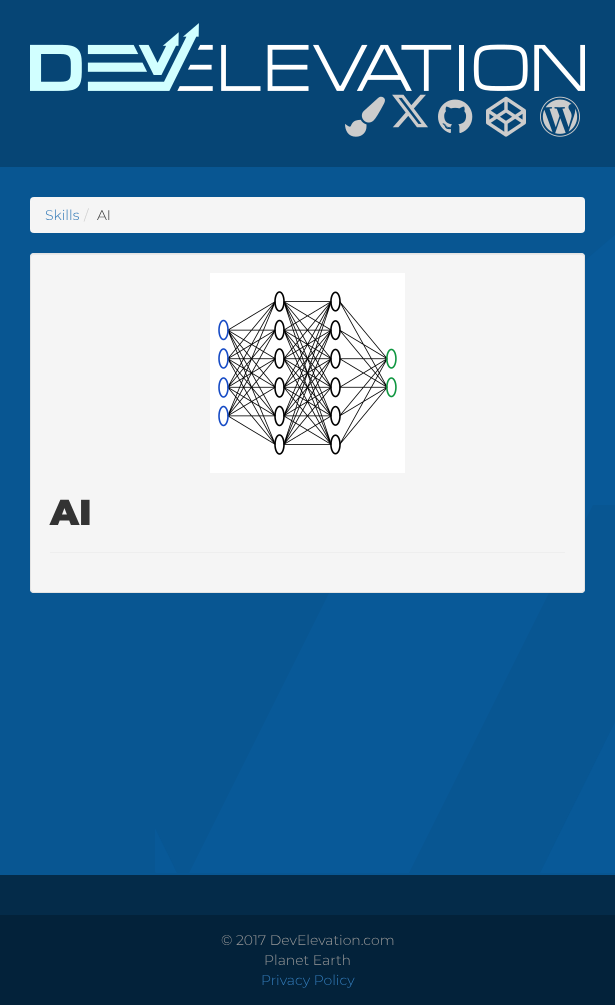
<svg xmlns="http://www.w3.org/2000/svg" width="615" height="1005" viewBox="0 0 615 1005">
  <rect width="100%" height="100%" fill="#085692"/>
  <path d="M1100 1L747 303H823L540 873H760L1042 303H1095ZM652 203L300 505H373L189 873H409L593 505H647ZM155 828V871C155 872 155 873 156 873H177Z" fill="#085998" fill-rule="evenodd"/>
  <rect x="0" y="0" width="615" height="167" fill="#064575"/>
  <image x="30" y="23" width="555" height="68" href="img1.png"/>
  <image x="345" y="96" width="40" height="41" href="img2.png"/>
  <image x="392" y="94" width="36" height="34" href="img3.png"/>
  <image x="438" y="99" width="35" height="34" href="img4.png"/>
  <image x="486" y="96" width="40" height="41" href="img5.png"/>
  <image x="540" y="96" width="40" height="41" href="img6.png"/>
  <rect x="30" y="197" width="555" height="36" rx="4" fill="#f5f5f5"/>
  <text x="45" y="220" font-family="Montserrat" font-size="14" font-weight="300" fill="#337ab7">Skills</text>
  <text x="84" y="220" font-family="Montserrat" font-size="14" font-weight="300" fill="#cccccc">/</text>
  <text x="97" y="220" font-family="Montserrat" font-size="14" font-weight="300" fill="#333333">AI</text>
  <rect x="30" y="253" width="555" height="340" rx="4" fill="#f5f5f5"/>
  <path d="M34 255H581C583 255 584 256 584 258C584 256 583 254 581 254H34L32 255L31 256V258C31 256 32 255 34 255Z" fill="#e9e9e9"/>
  <rect x="30.5" y="253.5" width="554" height="339" rx="3.5" fill="none" stroke="#e3e3e3"/>
  <image x="210" y="273" width="195" height="200" href="img7.png"/>
  <text x="50" y="525" font-family="Montserrat" font-size="36" font-weight="900" fill="#333333">AI</text>
  <rect x="50" y="552" width="515" height="1" fill="#eeeeee"/>
  <rect x="0" y="875" width="615" height="40" fill="#042b49"/>
  <rect x="0" y="915" width="615" height="90" fill="#03223a"/>
  <text x="221" y="945" font-family="Montserrat" font-size="14" font-weight="300" fill="#999999">© 2017 DevElevation.com</text>
  <text x="264" y="965" font-family="Montserrat" font-size="14" font-weight="300" fill="#999999">Planet Earth</text>
  <text x="261" y="985" font-family="Montserrat" font-size="14" font-weight="300" fill="#337ab7">Privacy Policy</text>
</svg>
